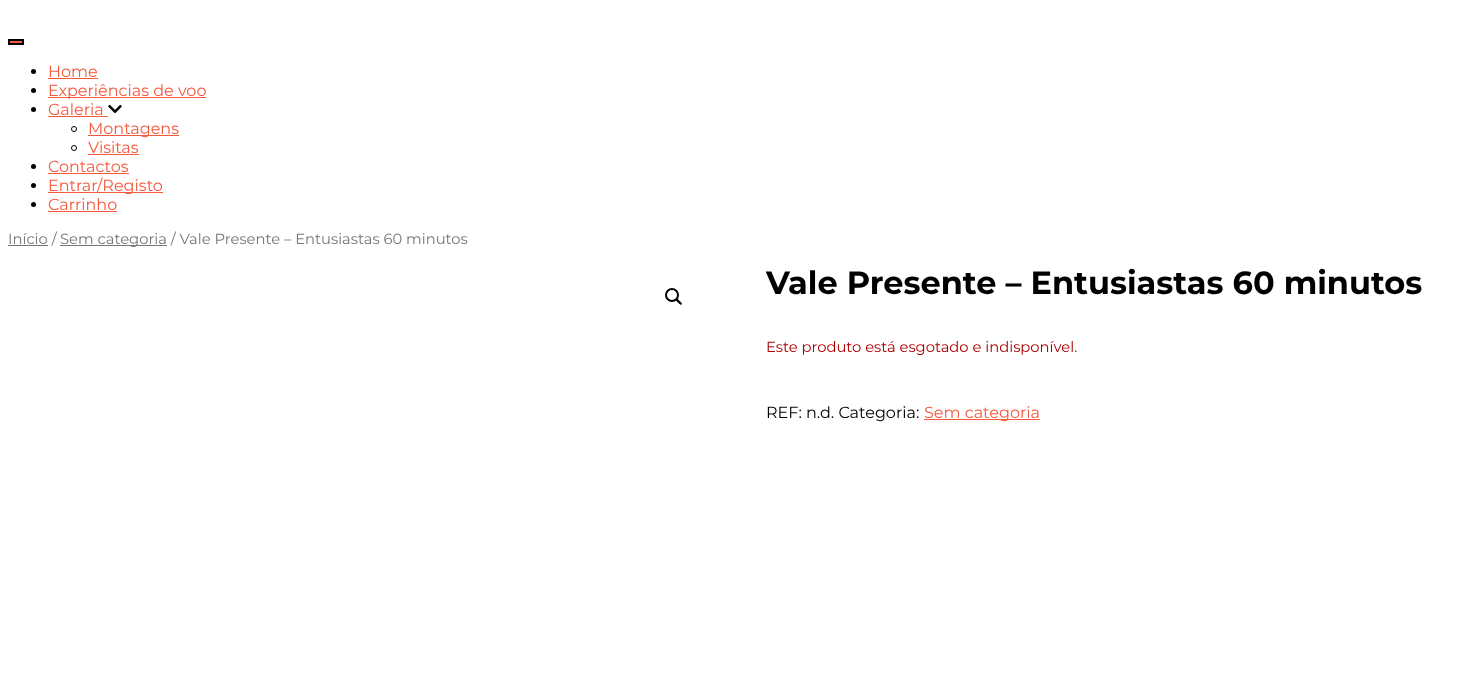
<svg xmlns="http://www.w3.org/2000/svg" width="1474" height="675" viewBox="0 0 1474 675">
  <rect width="100%" height="100%" fill="#ffffff"/>
  <rect x="9" y="40" width="14" height="4" fill="#f5593d" stroke="#000000" stroke-width="2"/>
  <circle cx="33.5" cy="71.5" r="2.5" fill="#000000"/>
  <text x="48" y="77" font-family="Montserrat" font-size="16" fill="#f5593d">Home</text>
  <rect x="48" y="78" width="50" height="1" fill="#f5593d"/>
  <circle cx="33.5" cy="90.5" r="2.5" fill="#000000"/>
  <rect x="48" y="97" width="158" height="1" fill="#f5593d"/>
  <text x="48" y="96" font-family="Montserrat" font-size="16" fill="#f5593d">Experiências de voo</text>
  <circle cx="33.5" cy="109.5" r="2.5" fill="#000000"/>
  <text x="48" y="115" font-family="Montserrat" font-size="16" fill="#f5593d">Galeria</text>
  <rect x="48" y="116" width="60" height="1" fill="#f5593d"/>
  <image x="108" y="104" width="14" height="10" href="img1.png"/>
  <circle cx="74" cy="129" r="2.5" fill="none" stroke="#000000"/>
  <rect x="88" y="135" width="91" height="1" fill="#f5593d"/>
  <text x="88" y="134" font-family="Montserrat" font-size="16" fill="#f5593d">Montagens</text>
  <circle cx="74" cy="148" r="2.5" fill="none" stroke="#000000"/>
  <text x="88" y="153" font-family="Montserrat" font-size="16" fill="#f5593d">Visitas</text>
  <rect x="88" y="154" width="51" height="1" fill="#f5593d"/>
  <circle cx="33.5" cy="166.5" r="2.5" fill="#000000"/>
  <text x="48" y="172" font-family="Montserrat" font-size="16" fill="#f5593d">Contactos</text>
  <rect x="48" y="173" width="81" height="1" fill="#f5593d"/>
  <circle cx="33.5" cy="185.5" r="2.5" fill="#000000"/>
  <rect x="48" y="192" width="115" height="1" fill="#f5593d"/>
  <text x="48" y="191" font-family="Montserrat" font-size="16" fill="#f5593d">Entrar/Registo</text>
  <circle cx="33.5" cy="204.5" r="2.5" fill="#000000"/>
  <text x="48" y="210" font-family="Montserrat" font-size="16" fill="#f5593d">Carrinho</text>
  <rect x="48" y="211" width="69" height="1" fill="#f5593d"/>
  <rect x="8" y="245" width="40" height="1" fill="#767676"/>
  <text x="8" y="244" font-family="Montserrat" font-size="14.75" fill="#767676">Início /</text>
  <rect x="60" y="245" width="107" height="1" fill="#767676"/>
  <text x="60" y="244" font-family="Montserrat" font-size="14.75" fill="#767676">Sem categoria / Vale Presente – Entusiastas 60 minutos</text>
  <circle cx="672" cy="295" r="6" fill="none" stroke="#000000" stroke-width="2"/>
  <path d="M676 299C677 297.5 679 300.5 679.5 301C680 301.5 683 303.5 681.5 304.5C680.5 305.5 678.5 303 678 302.5C677.5 302 675 300 676 299Z" fill="#000000"/>
  <text x="766" y="294" font-family="Montserrat" font-size="32" font-weight="bold" fill="#000000">Vale Presente – Entusiastas 60 minutos</text>
  <text x="766" y="352" font-family="Montserrat" font-size="14.75" fill="#aa0000">Este produto está esgotado e indisponível.</text>
  <text x="766" y="418" font-family="Montserrat" font-size="16" fill="#000000">REF: n.d. Categoria:</text>
  <rect x="924" y="419" width="116" height="1" fill="#f5593d"/>
  <text x="924" y="418" font-family="Montserrat" font-size="16" fill="#f5593d">Sem categoria</text>
</svg>
